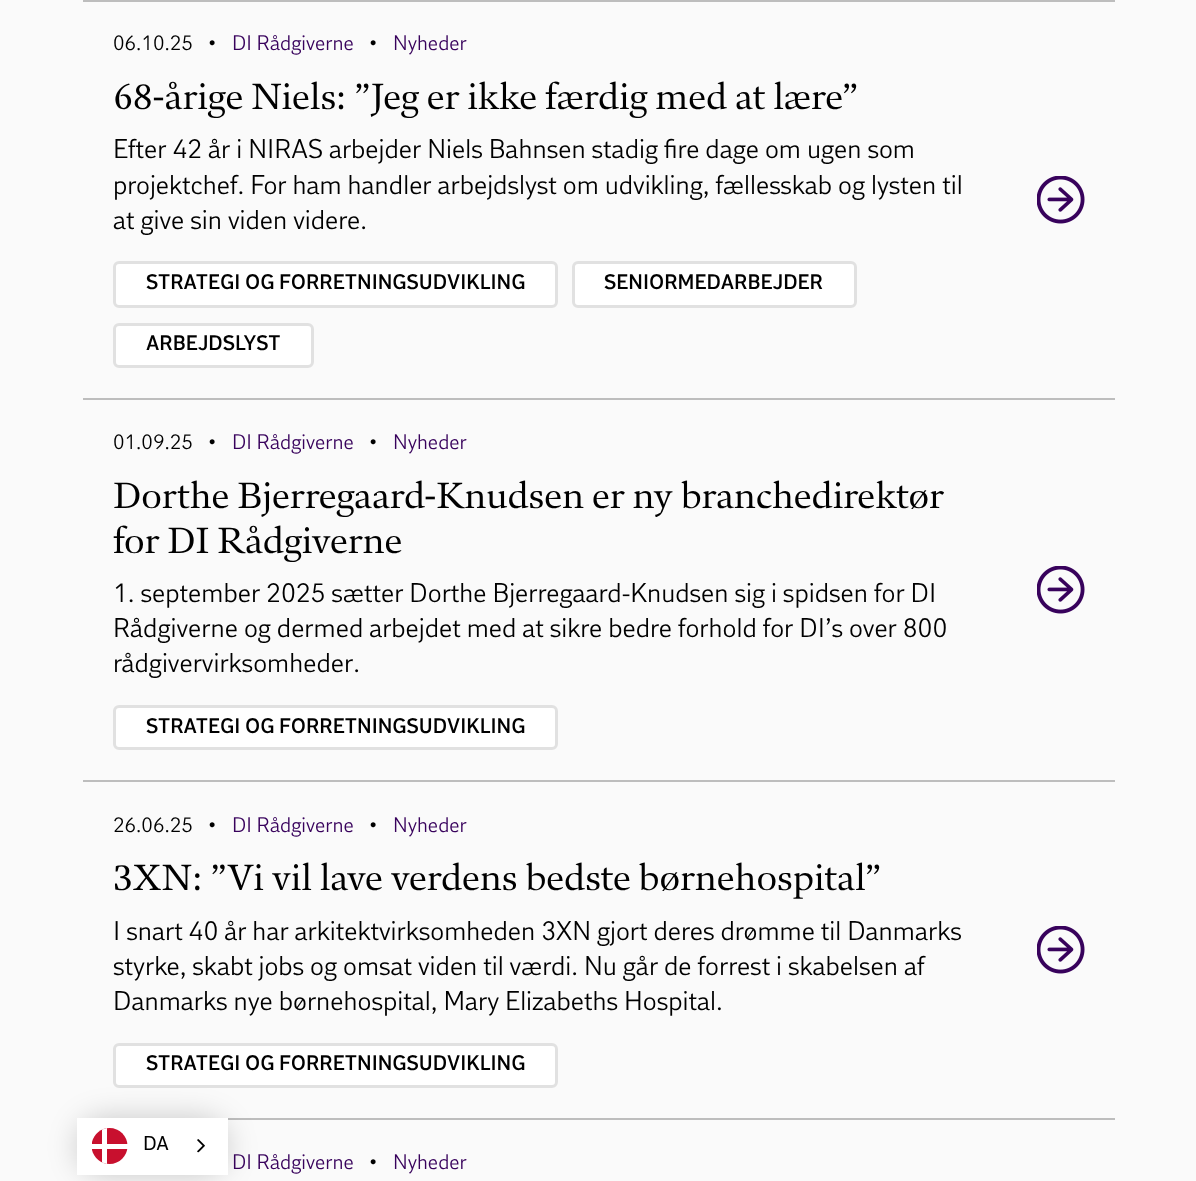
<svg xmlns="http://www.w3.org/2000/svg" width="1196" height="1181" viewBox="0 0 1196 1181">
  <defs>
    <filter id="blur1" x="-50%" y="-200%" width="200%" height="500%"><feGaussianBlur stdDeviation="15"/></filter>
  </defs>
  <rect width="100%" height="100%" fill="#fafafa"/>
  <rect x="83" y="0" width="1032" height="2" fill="#bdbdbd"/>
  <rect x="83" y="398" width="1032" height="2" fill="#bdbdbd"/>
  <text x="113" y="50" font-family="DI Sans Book" font-size="21" fill="#000000">06.10.25</text>
  <text x="209" y="47" font-family="DI Sans Book" font-size="12" fill="#000000">•</text>
  <text x="232" y="50" font-family="DI Sans Book" font-size="21" fill="#38025c">DI Rådgiverne</text>
  <text x="370" y="47" font-family="DI Sans Book" font-size="12" fill="#000000">•</text>
  <text x="393" y="50" font-family="DI Sans Book" font-size="21" fill="#38025c">Nyheder</text>
  <text x="113" y="109" font-family="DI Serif" font-size="36" fill="#000000">68-årige Niels: ”Jeg er ikke færdig med at lære”</text>
  <text x="113" y="158" font-family="DI Sans Book" font-size="27" fill="#000000">Efter 42 år i NIRAS arbejder Niels Bahnsen stadig fire dage om ugen som</text>
  <text x="113" y="194" font-family="DI Sans Book" font-size="27" fill="#000000">projektchef. For ham handler arbejdslyst om udvikling, fællesskab og lysten til</text>
  <text x="113" y="229" font-family="DI Sans Book" font-size="27" fill="#000000">at give sin viden videre.</text>
  <rect x="114.5" y="262.5" width="442" height="44" rx="4.5" fill="#ffffff" stroke="#e1e1e1" stroke-width="3"/>
  <text x="146" y="289" font-family="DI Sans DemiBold" font-size="21" font-weight="600" fill="#000000">STRATEGI OG FORRETNINGSUDVIKLING</text>
  <rect x="573.5" y="262.5" width="282" height="44" rx="4.5" fill="#ffffff" stroke="#e1e1e1" stroke-width="3"/>
  <text x="604" y="289" font-family="DI Sans DemiBold" font-size="21" font-weight="600" fill="#000000">SENIORMEDARBEJDER</text>
  <rect x="114.5" y="324.5" width="198" height="42" rx="4.5" fill="#ffffff" stroke="#e1e1e1" stroke-width="3"/>
  <text x="146" y="350" font-family="DI Sans DemiBold" font-size="21" font-weight="600" fill="#000000">ARBEJDSLYST</text>
  <image x="1037" y="176" width="48" height="48" href="img1.png"/>
  <rect x="83" y="780" width="1032" height="2" fill="#bdbdbd"/>
  <text x="113" y="449" font-family="DI Sans Book" font-size="21" fill="#000000">01.09.25</text>
  <text x="209" y="446" font-family="DI Sans Book" font-size="12" fill="#000000">•</text>
  <text x="232" y="449" font-family="DI Sans Book" font-size="21" fill="#38025c">DI Rådgiverne</text>
  <text x="370" y="446" font-family="DI Sans Book" font-size="12" fill="#000000">•</text>
  <text x="393" y="449" font-family="DI Sans Book" font-size="21" fill="#38025c">Nyheder</text>
  <text x="113" y="508" font-family="DI Serif" font-size="36" fill="#000000">Dorthe Bjerregaard-Knudsen er ny branchedirektør</text>
  <text x="113" y="553" font-family="DI Serif" font-size="36" fill="#000000">for DI Rådgiverne</text>
  <text x="113" y="602" font-family="DI Sans Book" font-size="27" fill="#000000">1. september 2025 sætter Dorthe Bjerregaard-Knudsen sig i spidsen for DI</text>
  <text x="113" y="637" font-family="DI Sans Book" font-size="27" fill="#000000">Rådgiverne og dermed arbejdet med at sikre bedre forhold for DI’s over 800</text>
  <text x="113" y="672" font-family="DI Sans Book" font-size="27" fill="#000000">rådgivervirksomheder.</text>
  <rect x="114.5" y="706.5" width="442" height="42" rx="4.5" fill="#ffffff" stroke="#e1e1e1" stroke-width="3"/>
  <text x="146" y="733" font-family="DI Sans DemiBold" font-size="21" font-weight="600" fill="#000000">STRATEGI OG FORRETNINGSUDVIKLING</text>
  <image x="1037" y="566" width="48" height="48" href="img1.png"/>
  <rect x="228" y="1118" width="887" height="2" fill="#bdbdbd"/>
  <text x="113" y="832" font-family="DI Sans Book" font-size="21" fill="#000000">26.06.25</text>
  <text x="209" y="829" font-family="DI Sans Book" font-size="12" fill="#000000">•</text>
  <text x="232" y="832" font-family="DI Sans Book" font-size="21" fill="#38025c">DI Rådgiverne</text>
  <text x="370" y="829" font-family="DI Sans Book" font-size="12" fill="#000000">•</text>
  <text x="393" y="832" font-family="DI Sans Book" font-size="21" fill="#38025c">Nyheder</text>
  <text x="113" y="890" font-family="DI Serif" font-size="36" fill="#000000">3XN: ”Vi vil lave verdens bedste børnehospital”</text>
  <text x="113" y="940" font-family="DI Sans Book" font-size="27" fill="#000000">I snart 40 år har arkitektvirksomheden 3XN gjort deres drømme til Danmarks</text>
  <text x="113" y="975" font-family="DI Sans Book" font-size="27" fill="#000000">styrke, skabt jobs og omsat viden til værdi. Nu går de forrest i skabelsen af</text>
  <text x="113" y="1010" font-family="DI Sans Book" font-size="27" fill="#000000">Danmarks nye børnehospital, Mary Elizabeths Hospital.</text>
  <rect x="114.5" y="1044.5" width="442" height="42" rx="4.5" fill="#ffffff" stroke="#e1e1e1" stroke-width="3"/>
  <text x="146" y="1070" font-family="DI Sans DemiBold" font-size="21" font-weight="600" fill="#000000">STRATEGI OG FORRETNINGSUDVIKLING</text>
  <image x="1037" y="926" width="48" height="48" href="img1.png"/>
  <text x="232" y="1169" font-family="DI Sans Book" font-size="21" fill="#38025c">DI Rådgiverne</text>
  <text x="370" y="1166" font-family="DI Sans Book" font-size="12" fill="#000000">•</text>
  <text x="393" y="1169" font-family="DI Sans Book" font-size="21" fill="#38025c">Nyheder</text>
  <rect x="77" y="1118" width="151" height="57" rx="28.5" fill="#000000" fill-opacity="0.2" filter="url(#blur1)"/>
  <rect x="77" y="1118" width="151" height="57" fill="#ffffff"/>
  <path d="M109.5 1128C101 1128 94 1134 92 1142V1150C94 1158 101 1164 109.5 1164C119.5 1164 127.5 1156 127.5 1146C127.5 1136 119.5 1128 109.5 1128Z" fill="#c8102e"/>
  <path d="M102 1129.5L107 1128V1164L102 1162.5Z" fill="#ffffff"/>
  <rect x="92" y="1144" width="36" height="5" fill="#ffffff"/>
  <text x="143" y="1150" font-family="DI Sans" font-size="20" fill="#000000">DA</text>
  <image x="197" y="1139" width="8" height="14" href="img2.png"/>
</svg>
